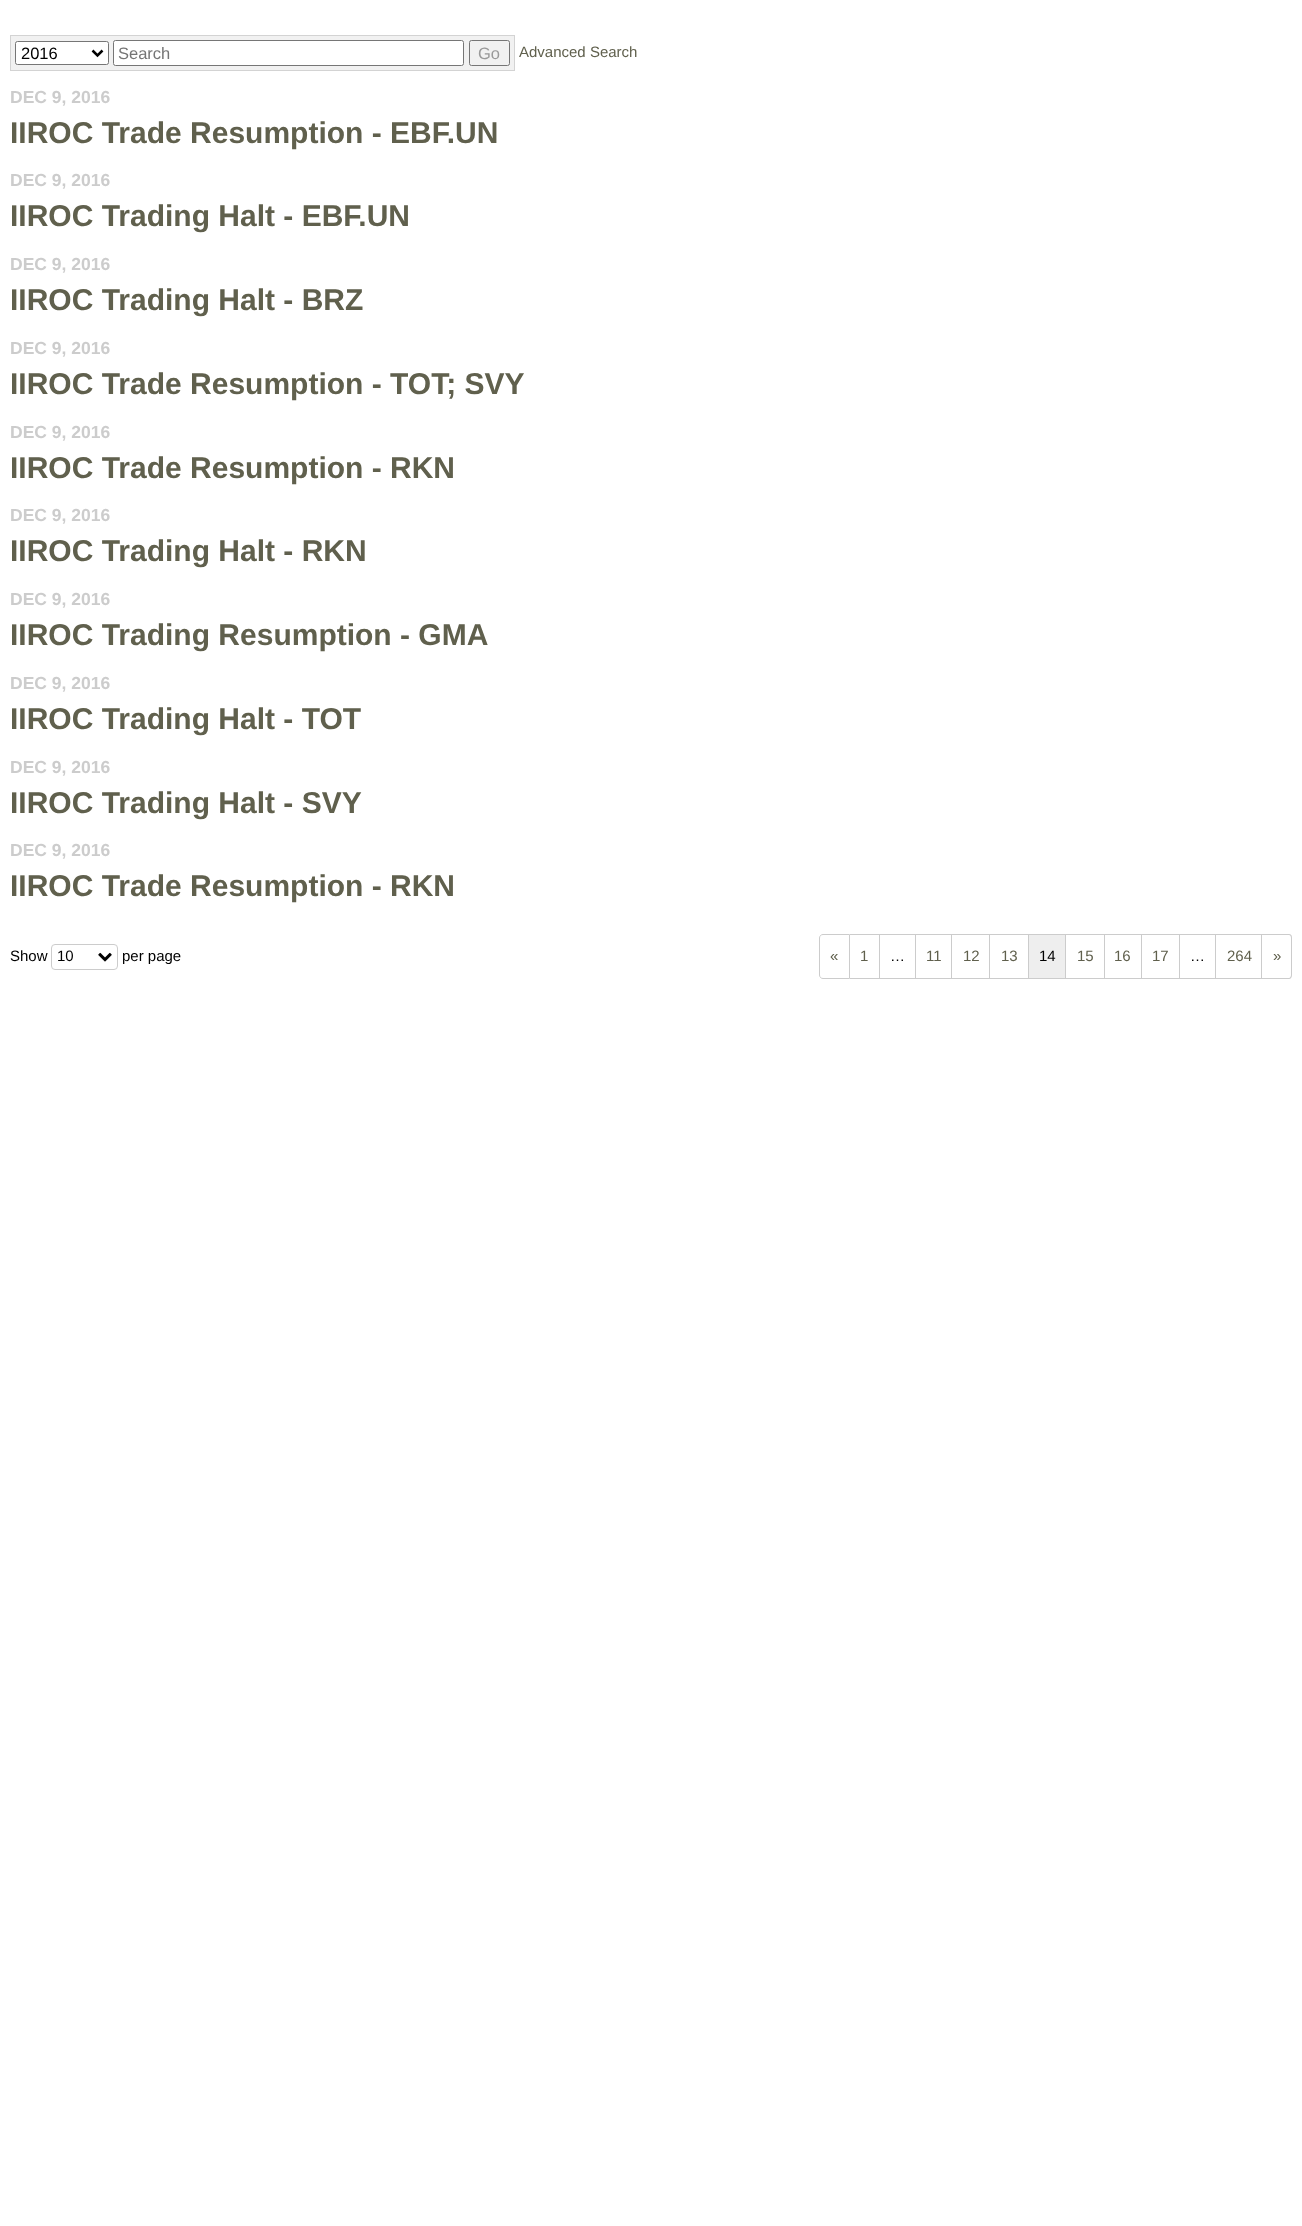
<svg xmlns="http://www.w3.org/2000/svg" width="1302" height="2226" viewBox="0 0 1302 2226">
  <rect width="100%" height="100%" fill="#ffffff"/>
  <rect x="10.5" y="35.5" width="504" height="35" fill="#f1f1f1" stroke="#d3d3d3"/>
  <rect x="15.5" y="41.5" width="93" height="23" rx="2" fill="#ffffff" stroke="#767676"/>
  <path d="M92.5 50.5L97.5 55.5L102.5 50.5" fill="none" stroke="#000000" stroke-width="2.5"/>
  <text x="21" y="59" font-family="Liberation Sans" font-size="16.5" fill="#000000">2016</text>
  <rect x="113.5" y="40.5" width="350" height="25" rx="2" fill="#ffffff" stroke="#767676"/>
  <text x="118" y="59" font-family="Liberation Sans" font-size="16.5" fill="#757575">Search</text>
  <rect x="469.5" y="40.5" width="40" height="25" rx="2" fill="none" stroke="#767676"/>
  <text x="478" y="59" font-family="Liberation Sans" font-size="16.5" fill="#999999">Go</text>
  <text x="519" y="57" font-family="Liberation Sans" font-size="15" fill="#60604d">Advanced Search</text>
  <text x="10" y="103" font-family="Liberation Sans" font-size="17.5" font-weight="bold" fill="#cccccc">DEC 9, 2016</text>
  <text x="10" y="143" font-family="Liberation Sans" font-size="30" font-weight="bold" fill="#60604d">IIROC Trade Resumption - EBF.UN</text>
  <text x="10" y="186" font-family="Liberation Sans" font-size="17.5" font-weight="bold" fill="#cccccc">DEC 9, 2016</text>
  <text x="10" y="226" font-family="Liberation Sans" font-size="30" font-weight="bold" fill="#60604d">IIROC Trading Halt - EBF.UN</text>
  <text x="10" y="270" font-family="Liberation Sans" font-size="17.5" font-weight="bold" fill="#cccccc">DEC 9, 2016</text>
  <text x="10" y="310" font-family="Liberation Sans" font-size="30" font-weight="bold" fill="#60604d">IIROC Trading Halt - BRZ</text>
  <text x="10" y="354" font-family="Liberation Sans" font-size="17.5" font-weight="bold" fill="#cccccc">DEC 9, 2016</text>
  <text x="10" y="394" font-family="Liberation Sans" font-size="30" font-weight="bold" fill="#60604d">IIROC Trade Resumption - TOT; SVY</text>
  <text x="10" y="438" font-family="Liberation Sans" font-size="17.5" font-weight="bold" fill="#cccccc">DEC 9, 2016</text>
  <text x="10" y="478" font-family="Liberation Sans" font-size="30" font-weight="bold" fill="#60604d">IIROC Trade Resumption - RKN</text>
  <text x="10" y="521" font-family="Liberation Sans" font-size="17.5" font-weight="bold" fill="#cccccc">DEC 9, 2016</text>
  <text x="10" y="561" font-family="Liberation Sans" font-size="30" font-weight="bold" fill="#60604d">IIROC Trading Halt - RKN</text>
  <text x="10" y="605" font-family="Liberation Sans" font-size="17.5" font-weight="bold" fill="#cccccc">DEC 9, 2016</text>
  <text x="10" y="645" font-family="Liberation Sans" font-size="30" font-weight="bold" fill="#60604d">IIROC Trading Resumption - GMA</text>
  <text x="10" y="689" font-family="Liberation Sans" font-size="17.5" font-weight="bold" fill="#cccccc">DEC 9, 2016</text>
  <text x="10" y="729" font-family="Liberation Sans" font-size="30" font-weight="bold" fill="#60604d">IIROC Trading Halt - TOT</text>
  <text x="10" y="773" font-family="Liberation Sans" font-size="17.5" font-weight="bold" fill="#cccccc">DEC 9, 2016</text>
  <text x="10" y="813" font-family="Liberation Sans" font-size="30" font-weight="bold" fill="#60604d">IIROC Trading Halt - SVY</text>
  <text x="10" y="856" font-family="Liberation Sans" font-size="17.5" font-weight="bold" fill="#cccccc">DEC 9, 2016</text>
  <text x="10" y="896" font-family="Liberation Sans" font-size="30" font-weight="bold" fill="#60604d">IIROC Trade Resumption - RKN</text>
  <text x="10" y="961" font-family="Liberation Sans" font-size="15" fill="#000000">Show</text>
  <rect x="51.5" y="944.5" width="66" height="25" rx="3.5" fill="none" stroke="#cccccc"/>
  <text x="57" y="961" font-family="Liberation Sans" font-size="15" fill="#000000">10</text>
  <image x="98" y="952" width="14" height="10" href="img1.png"/>
  <text x="122" y="961" font-family="Liberation Sans" font-size="15" fill="#000000">per page</text>
  <path d="M823 934.5H849.5V978.5H823C821 978.5 819.5 977 819.5 975V938C819.5 936 821 934.5 823 934.5Z" fill="none" stroke="#cccccc"/>
  <text x="830" y="961" font-family="Liberation Sans" font-size="15" fill="#60604d">«</text>
  <rect x="850" y="934" width="413" height="1" fill="#cccccc"/>
  <rect x="879" y="934" width="1" height="45" fill="#cccccc"/>
  <rect x="850" y="978" width="30" height="1" fill="#cccccc"/>
  <text x="860" y="961" font-family="Liberation Sans" font-size="15" fill="#60604d">1</text>
  <rect x="915" y="934" width="1" height="45" fill="#cccccc"/>
  <rect x="880" y="978" width="36" height="1" fill="#cccccc"/>
  <text x="890" y="961" font-family="Liberation Sans" font-size="15" fill="#000000">…</text>
  <rect x="951" y="934" width="1" height="45" fill="#cccccc"/>
  <rect x="916" y="978" width="37" height="1" fill="#cccccc"/>
  <text x="926" y="961" font-family="Liberation Sans" font-size="15" fill="#60604d">11</text>
  <rect x="989" y="934" width="1" height="45" fill="#cccccc"/>
  <rect x="953" y="978" width="37" height="1" fill="#cccccc"/>
  <text x="963" y="961" font-family="Liberation Sans" font-size="15" fill="#60604d">12</text>
  <rect x="1028" y="934" width="1" height="45" fill="#cccccc"/>
  <rect x="990" y="978" width="39" height="1" fill="#cccccc"/>
  <text x="1001" y="961" font-family="Liberation Sans" font-size="15" fill="#60604d">13</text>
  <rect x="1029" y="935" width="36" height="43" fill="#eeeeee"/>
  <rect x="1065" y="934" width="1" height="45" fill="#cccccc"/>
  <rect x="1029" y="978" width="37" height="1" fill="#cccccc"/>
  <text x="1039" y="961" font-family="Liberation Sans" font-size="15" fill="#000000">14</text>
  <rect x="1104" y="934" width="1" height="45" fill="#cccccc"/>
  <rect x="1066" y="978" width="39" height="1" fill="#cccccc"/>
  <text x="1077" y="961" font-family="Liberation Sans" font-size="15" fill="#60604d">15</text>
  <rect x="1141" y="934" width="1" height="45" fill="#cccccc"/>
  <rect x="1105" y="978" width="38" height="1" fill="#cccccc"/>
  <text x="1114" y="961" font-family="Liberation Sans" font-size="15" fill="#60604d">16</text>
  <rect x="1179" y="934" width="1" height="45" fill="#cccccc"/>
  <rect x="1143" y="978" width="37" height="1" fill="#cccccc"/>
  <text x="1152" y="961" font-family="Liberation Sans" font-size="15" fill="#60604d">17</text>
  <rect x="1215" y="934" width="1" height="45" fill="#cccccc"/>
  <rect x="1180" y="978" width="36" height="1" fill="#cccccc"/>
  <text x="1190" y="961" font-family="Liberation Sans" font-size="15" fill="#000000">…</text>
  <rect x="1261" y="934" width="1" height="45" fill="#cccccc"/>
  <rect x="1216" y="978" width="47" height="1" fill="#cccccc"/>
  <text x="1227" y="961" font-family="Liberation Sans" font-size="15" fill="#60604d">264</text>
  <path d="M1262 934H1289C1291 934 1292 935 1292 938V975C1292 977 1291 979 1289 979H1262ZM1262 935H1289C1290 935 1291 936 1291 938V975C1291 976 1290 978 1289 978H1262Z" fill="#cccccc" fill-rule="evenodd"/>
  <text x="1273" y="961" font-family="Liberation Sans" font-size="15" fill="#60604d">»</text>
</svg>
